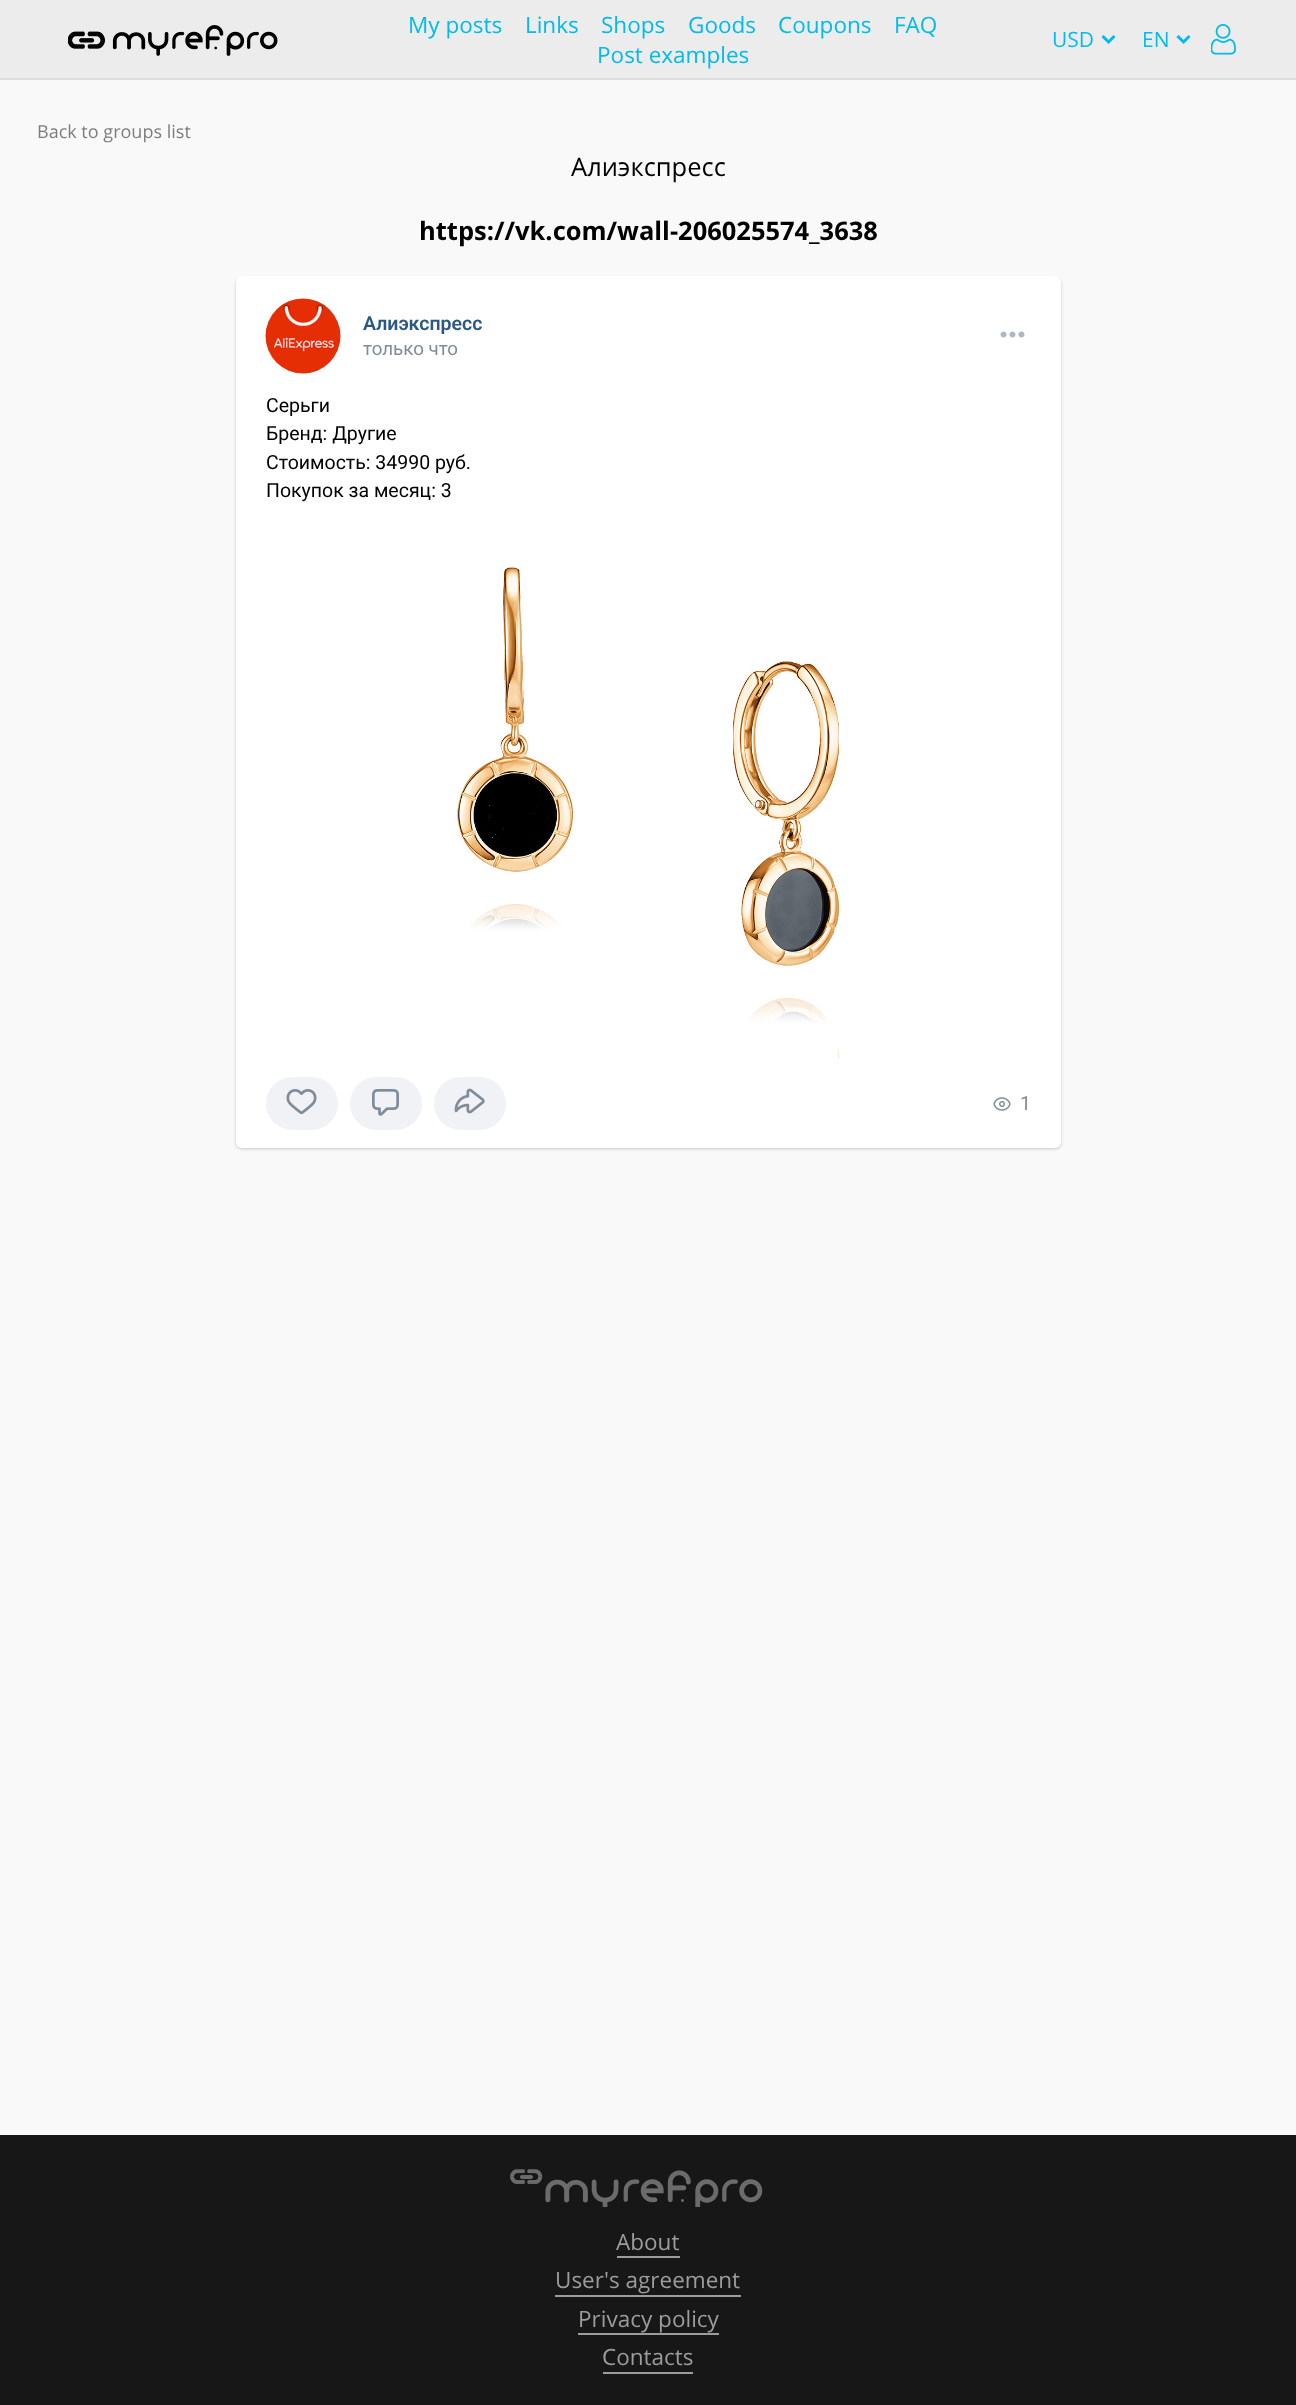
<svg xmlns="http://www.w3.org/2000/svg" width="1296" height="2405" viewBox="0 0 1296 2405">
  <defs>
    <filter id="blur1" x="-50%" y="-200%" width="200%" height="500%"><feGaussianBlur stdDeviation="1.5"/></filter>
  </defs>
  <rect width="100%" height="100%" fill="#f9f9f9"/>
  <rect x="0" y="0" width="1296" height="78" fill="#ececec"/>
  <rect x="0" y="78" width="1296" height="2" fill="#dfdfdf"/>
  <image x="68" y="25" width="210" height="31" href="img1.png"/>
  <text x="408" y="33" font-family="Open Sans" font-size="22.5" fill="#01bceb">My posts</text>
  <text x="525" y="33" font-family="Open Sans" font-size="22.5" fill="#01bceb">Links</text>
  <text x="601" y="33" font-family="Open Sans" font-size="22.5" fill="#01bceb">Shops</text>
  <text x="688" y="33" font-family="Open Sans" font-size="22.5" fill="#01bceb">Goods</text>
  <text x="778" y="33" font-family="Open Sans" font-size="22.5" fill="#01bceb">Coupons</text>
  <text x="894" y="33" font-family="Open Sans" font-size="22.5" fill="#01bceb">FAQ</text>
  <text x="597" y="63" font-family="Open Sans" font-size="22.5" fill="#01bceb">Post examples</text>
  <path d="M1102.5 36L1108.5 42L1114.5 36" fill="none" stroke="#01bceb" stroke-width="3"/>
  <text x="1052" y="47" font-family="Open Sans" font-size="21" fill="#01bceb">USD</text>
  <path d="M1177.5 36L1183.5 42L1189.5 36" fill="none" stroke="#01bceb" stroke-width="3"/>
  <text x="1142" y="47" font-family="Open Sans" font-size="21" fill="#01bceb">EN</text>
  <image x="1211" y="24" width="25" height="31" href="img2.png"/>
  <text x="37" y="138" font-family="Open Sans" font-size="18" fill="#7d7d7d">Back to groups list</text>
  <text x="571" y="176" font-family="Open Sans" font-size="25.5" fill="#000000">Алиэкспресс</text>
  <text x="419" y="240" font-family="Open Sans" font-size="25.5" font-weight="bold" fill="#000000">https://vk.com/wall-206025574_3638</text>
  <rect x="236" y="278" width="825" height="871" rx="6" fill="#000000" fill-opacity="0.2" filter="url(#blur1)"/>
  <rect x="236" y="276" width="825" height="872" rx="6" fill="#ffffff"/>
  <image x="265" y="298" width="76" height="76" href="img3.png"/>
  <text x="363" y="330" font-family="Roboto" font-size="19.5" font-weight="600" fill="#2a5885">Алиэкспресс</text>
  <text x="363" y="355" font-family="Roboto" font-size="18.75" fill="#818c99">только что</text>
  <image x="1000" y="331" width="25" height="7" href="img4.png"/>
  <text x="266" y="412" font-family="Roboto" font-size="19.5" fill="#000000">Серьги</text>
  <text x="266" y="440" font-family="Roboto" font-size="19.5" fill="#000000">Бренд: Другие</text>
  <text x="266" y="469" font-family="Roboto" font-size="19.5" fill="#000000">Стоимость: 34990 руб.</text>
  <text x="266" y="497" font-family="Roboto" font-size="19.5" fill="#000000">Покупок за месяц: 3</text>
  <image x="456" y="566" width="384" height="493" href="img5.png"/>
  <rect x="266" y="1077" width="72" height="53" rx="26.5" fill="#f0f2f5"/>
  <image x="286" y="1089" width="31" height="26" href="img6.png"/>
  <rect x="350" y="1077" width="72" height="53" rx="26.5" fill="#f0f2f5"/>
  <image x="372" y="1089" width="27" height="27" href="img7.png"/>
  <rect x="434" y="1077" width="72" height="53" rx="26.5" fill="#f0f2f5"/>
  <image x="454" y="1088" width="31" height="26" href="img8.png"/>
  <image x="993" y="1097" width="18" height="14" href="img9.png"/>
  <text x="1020" y="1110" font-family="Roboto" font-size="19.5" fill="#818c99">1</text>
  <rect x="0" y="2135" width="1296" height="270" fill="#171717"/>
  <image x="510" y="2169" width="253" height="38" href="img10.png"/>
  <rect x="617" y="2256" width="63" height="2" fill="#9c9c9c"/>
  <text x="616" y="2250" font-family="Open Sans" font-size="22.5" fill="#9c9c9c">About</text>
  <rect x="555" y="2295" width="186" height="2" fill="#9c9c9c"/>
  <text x="555" y="2288" font-family="Open Sans" font-size="22.5" fill="#9c9c9c">User's agreement</text>
  <rect x="578" y="2333" width="141" height="2" fill="#9c9c9c"/>
  <text x="578" y="2327" font-family="Open Sans" font-size="22.5" fill="#9c9c9c">Privacy policy</text>
  <rect x="603" y="2372" width="90" height="2" fill="#9c9c9c"/>
  <text x="602" y="2365" font-family="Open Sans" font-size="22.5" fill="#9c9c9c">Contacts</text>
</svg>
